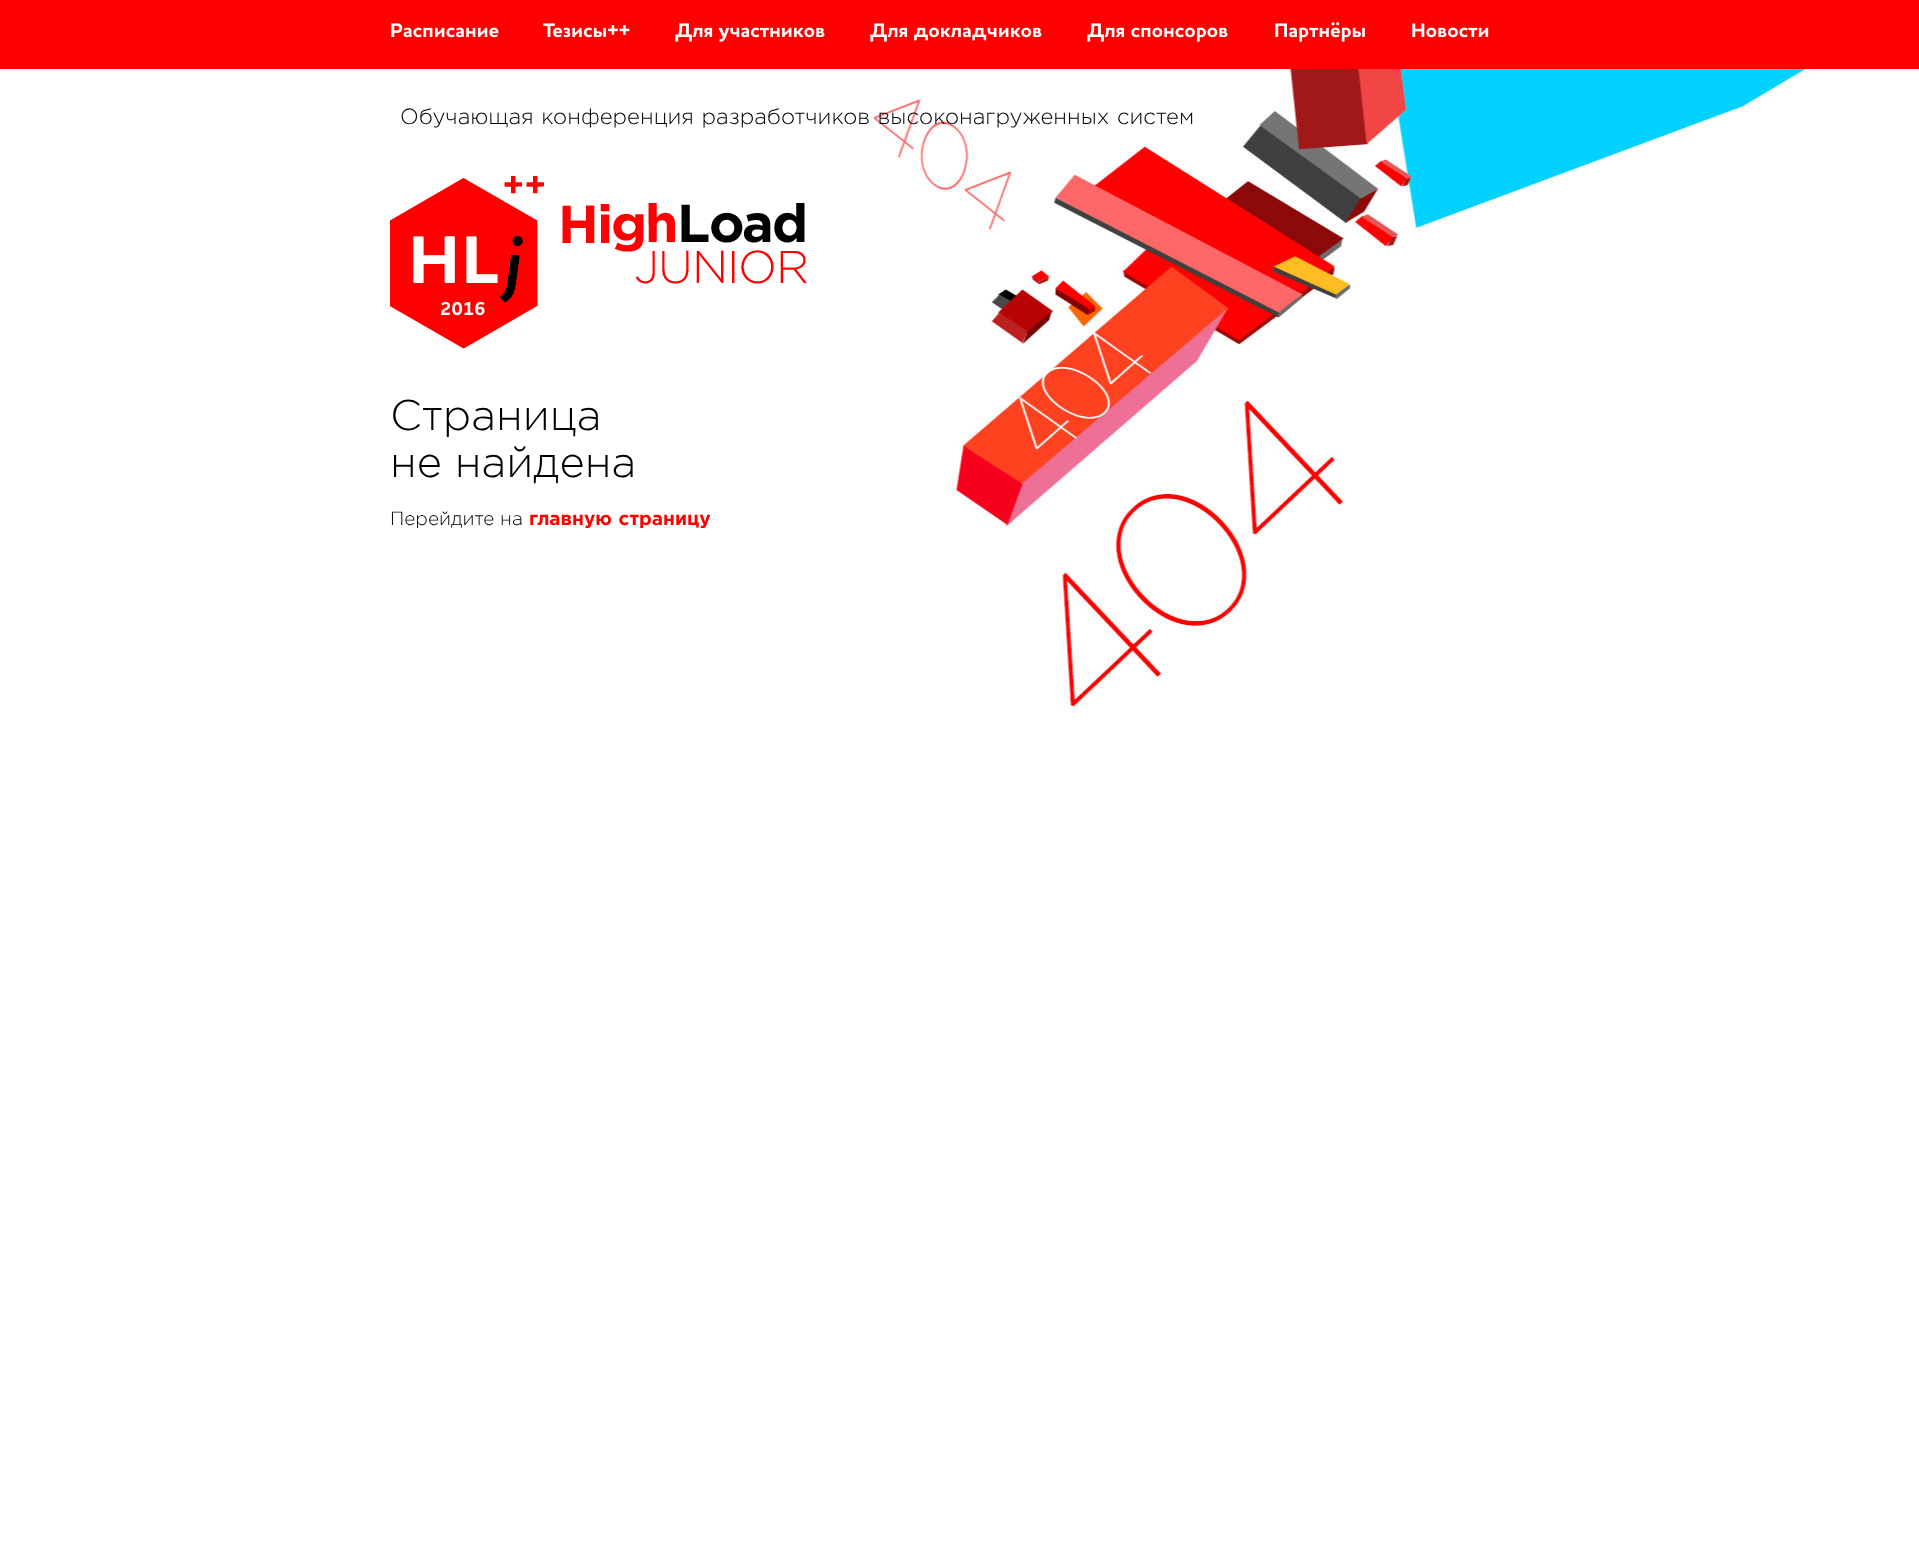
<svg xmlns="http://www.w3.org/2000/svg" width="1919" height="1546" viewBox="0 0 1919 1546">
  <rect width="100%" height="100%" fill="#ffffff"/>
  <image x="871" y="69" width="1001" height="643" href="img1.png"/>
  <rect x="0" y="0" width="1919" height="69" fill="#ff0000"/>
  <image x="391" y="23" width="108" height="15" href="img2.png"/>
  <image x="543" y="23" width="87" height="15" href="img3.png"/>
  <image x="675" y="23" width="150" height="19" href="img4.png"/>
  <image x="870" y="23" width="172" height="19" href="img5.png"/>
  <image x="1087" y="23" width="141" height="19" href="img6.png"/>
  <image x="1275" y="22" width="90" height="20" href="img7.png"/>
  <image x="1412" y="23" width="77" height="15" href="img8.png"/>
  <text x="400" y="124" word-spacing="1" font-family="Gotham" font-size="22" font-weight="300" fill="#000000">Обучающая конференция разработчиков высоконагруженных систем</text>
  <image x="390" y="176" width="417" height="173" href="img9.png"/>
  <image x="441" y="301" width="44" height="15" href="img10.png"/>
  <text x="390" y="430" font-family="Gotham" font-size="43" font-weight="300" fill="#000000">Страница</text>
  <text x="390" y="477" font-family="Gotham" font-size="43" font-weight="300" fill="#000000">не найдена</text>
  <text x="390" y="525" font-family="Gotham" font-size="19" font-weight="300" fill="#000000">Перейдите на</text>
  <text x="529" y="525" word-spacing="1" font-family="Gotham" font-size="19" font-weight="bold" fill="#ff0000">главную страницу</text>
</svg>
